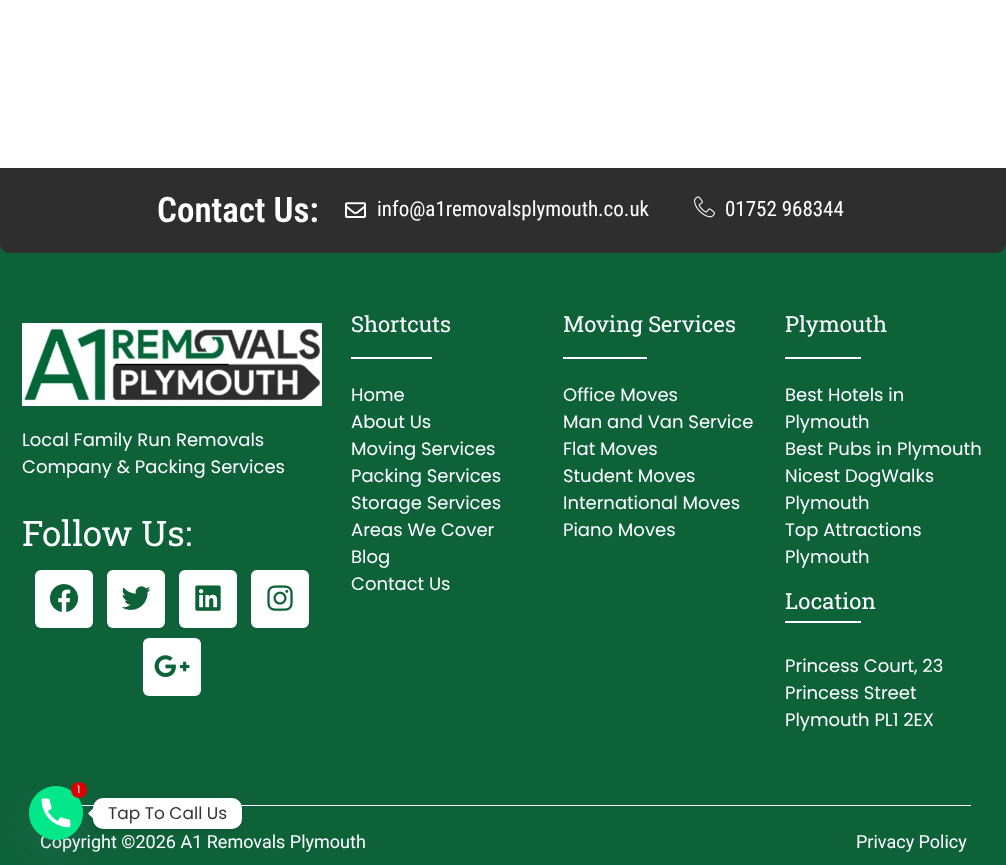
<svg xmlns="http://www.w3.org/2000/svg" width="1006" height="865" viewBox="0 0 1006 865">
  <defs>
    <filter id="blur1" x="-50%" y="-200%" width="200%" height="500%"><feGaussianBlur stdDeviation="12"/></filter>
    <filter id="blur2" x="-50%" y="-200%" width="200%" height="500%"><feGaussianBlur stdDeviation="4"/></filter>
  </defs>
  <rect width="100%" height="100%" fill="#ffffff"/>
  <rect x="0" y="243" width="1006" height="622" fill="#0e623a"/>
  <path d="M0 168H1006V243C1006 248.5 1001.5 253 996 253H10C4.5 253 0 248.5 0 243Z" fill="#2e2e2e"/>
  <text x="157" y="222" font-family="Roboto Condensed" font-size="35" font-weight="600" fill="#ffffff">Contact Us:</text>
  <image x="345" y="202" width="21" height="16" href="img1.png"/>
  <text x="377" y="216" font-family="Roboto Condensed" font-size="21" fill="#ffffff">info@a1removalsplymouth.co.uk</text>
  <image x="694" y="196" width="21" height="22" href="img2.png"/>
  <text x="725" y="216" font-family="Roboto Condensed" font-size="21" fill="#ffffff">01752 968344</text>
  <image x="22" y="323" width="300" height="83" href="img3.png"/>
  <text x="22" y="446" font-family="Poppins" font-size="18" fill="#ffffff">Local Family Run Removals</text>
  <text x="22" y="473" font-family="Poppins" font-size="18" fill="#ffffff">Company &amp; Packing Services</text>
  <text x="22" y="546" font-family="Roboto Slab" font-size="35" fill="#ffffff">Follow Us:</text>
  <rect x="35" y="570" width="58" height="58" rx="6" fill="#ffffff"/>
  <image x="49" y="584" width="30" height="28" href="img4.png"/>
  <rect x="107" y="570" width="58" height="58" rx="6" fill="#ffffff"/>
  <image x="121" y="586" width="30" height="24" href="img5.png"/>
  <rect x="179" y="570" width="58" height="58" rx="6" fill="#ffffff"/>
  <image x="195" y="585" width="26" height="26" href="img6.png"/>
  <rect x="251" y="570" width="58" height="58" rx="6" fill="#ffffff"/>
  <image x="267" y="585" width="26" height="26" href="img7.png"/>
  <rect x="143" y="638" width="58" height="58" rx="6" fill="#ffffff"/>
  <image x="154" y="655" width="36" height="22" href="img8.png"/>
  <text x="351" y="332" font-family="Roboto Slab" font-size="22" fill="#ffffff">Shortcuts</text>
  <rect x="351" y="357" width="81" height="2" fill="#ffffff"/>
  <text x="351" y="401" font-family="Poppins" font-size="18" fill="#ffffff">Home</text>
  <text x="351" y="428" font-family="Poppins" font-size="18" fill="#ffffff">About Us</text>
  <text x="351" y="455" font-family="Poppins" font-size="18" fill="#ffffff">Moving Services</text>
  <text x="351" y="482" font-family="Poppins" font-size="18" fill="#ffffff">Packing Services</text>
  <text x="351" y="509" font-family="Poppins" font-size="18" fill="#ffffff">Storage Services</text>
  <text x="351" y="536" font-family="Poppins" font-size="18" fill="#ffffff">Areas We Cover</text>
  <text x="351" y="563" font-family="Poppins" font-size="18" fill="#ffffff">Blog</text>
  <text x="351" y="590" font-family="Poppins" font-size="18" fill="#ffffff">Contact Us</text>
  <text x="563" y="332" font-family="Roboto Slab" font-size="22" fill="#ffffff">Moving Services</text>
  <rect x="563" y="357" width="84" height="2" fill="#ffffff"/>
  <text x="563" y="401" font-family="Poppins" font-size="18" fill="#ffffff">Office Moves</text>
  <text x="563" y="428" font-family="Poppins" font-size="18" fill="#ffffff">Man and Van Service</text>
  <text x="563" y="455" font-family="Poppins" font-size="18" fill="#ffffff">Flat Moves</text>
  <text x="563" y="482" font-family="Poppins" font-size="18" fill="#ffffff">Student Moves</text>
  <text x="563" y="509" font-family="Poppins" font-size="18" fill="#ffffff">International Moves</text>
  <text x="563" y="536" font-family="Poppins" font-size="18" fill="#ffffff">Piano Moves</text>
  <text x="785" y="332" font-family="Roboto Slab" font-size="22" fill="#ffffff">Plymouth</text>
  <rect x="785" y="357" width="76" height="2" fill="#ffffff"/>
  <text x="785" y="401" font-family="Poppins" font-size="18" fill="#ffffff">Best Hotels in</text>
  <text x="785" y="428" font-family="Poppins" font-size="18" fill="#ffffff">Plymouth</text>
  <text x="785" y="455" font-family="Poppins" font-size="18" fill="#ffffff">Best Pubs in Plymouth</text>
  <text x="785" y="482" font-family="Poppins" font-size="18" fill="#ffffff">Nicest DogWalks</text>
  <text x="785" y="509" font-family="Poppins" font-size="18" fill="#ffffff">Plymouth</text>
  <text x="785" y="536" font-family="Poppins" font-size="18" fill="#ffffff">Top Attractions</text>
  <text x="785" y="563" font-family="Poppins" font-size="18" fill="#ffffff">Plymouth</text>
  <text x="785" y="609" font-family="Roboto Slab" font-size="22" fill="#ffffff">Location</text>
  <rect x="785" y="621" width="76" height="2" fill="#ffffff"/>
  <text x="785" y="672" font-family="Poppins" font-size="18" fill="#ffffff">Princess Court, 23</text>
  <text x="785" y="699" font-family="Poppins" font-size="18" fill="#ffffff">Princess Street</text>
  <text x="785" y="726" font-family="Poppins" font-size="18" fill="#ffffff">Plymouth PL1 2EX</text>
  <rect x="81" y="805" width="890" height="1" fill="#ffffff"/>
  <text x="40" y="848" font-family="Roboto" font-size="18" fill="#ffffff">Copyright ©2026 A1 Removals Plymouth</text>
  <text x="856" y="848" font-family="Roboto" font-size="18" fill="#ffffff">Privacy Policy</text>
  <rect x="29" y="802" width="54" height="54" rx="27" fill="#49687e" fill-opacity="0.16" filter="url(#blur1)"/>
  <image x="29" y="786" width="54" height="54" href="img9.png"/>
  <rect x="93" y="799" width="149" height="31" rx="10" fill="#000000" fill-opacity="0.15" filter="url(#blur2)"/>
  <circle cx="79" cy="790" r="8" fill="#dd0000"/>
  <text x="77" y="793" font-family="Poppins" font-size="10" fill="#ffffff">1</text>
  <rect x="93" y="798" width="149" height="31" rx="10" fill="#ffffff"/>
  <path d="M93 808.5V818.5L88 813.5Z" fill="#ffffff"/>
  <text x="108" y="819" font-family="Poppins" font-size="17" fill="#333333">Tap To Call Us</text>
</svg>
